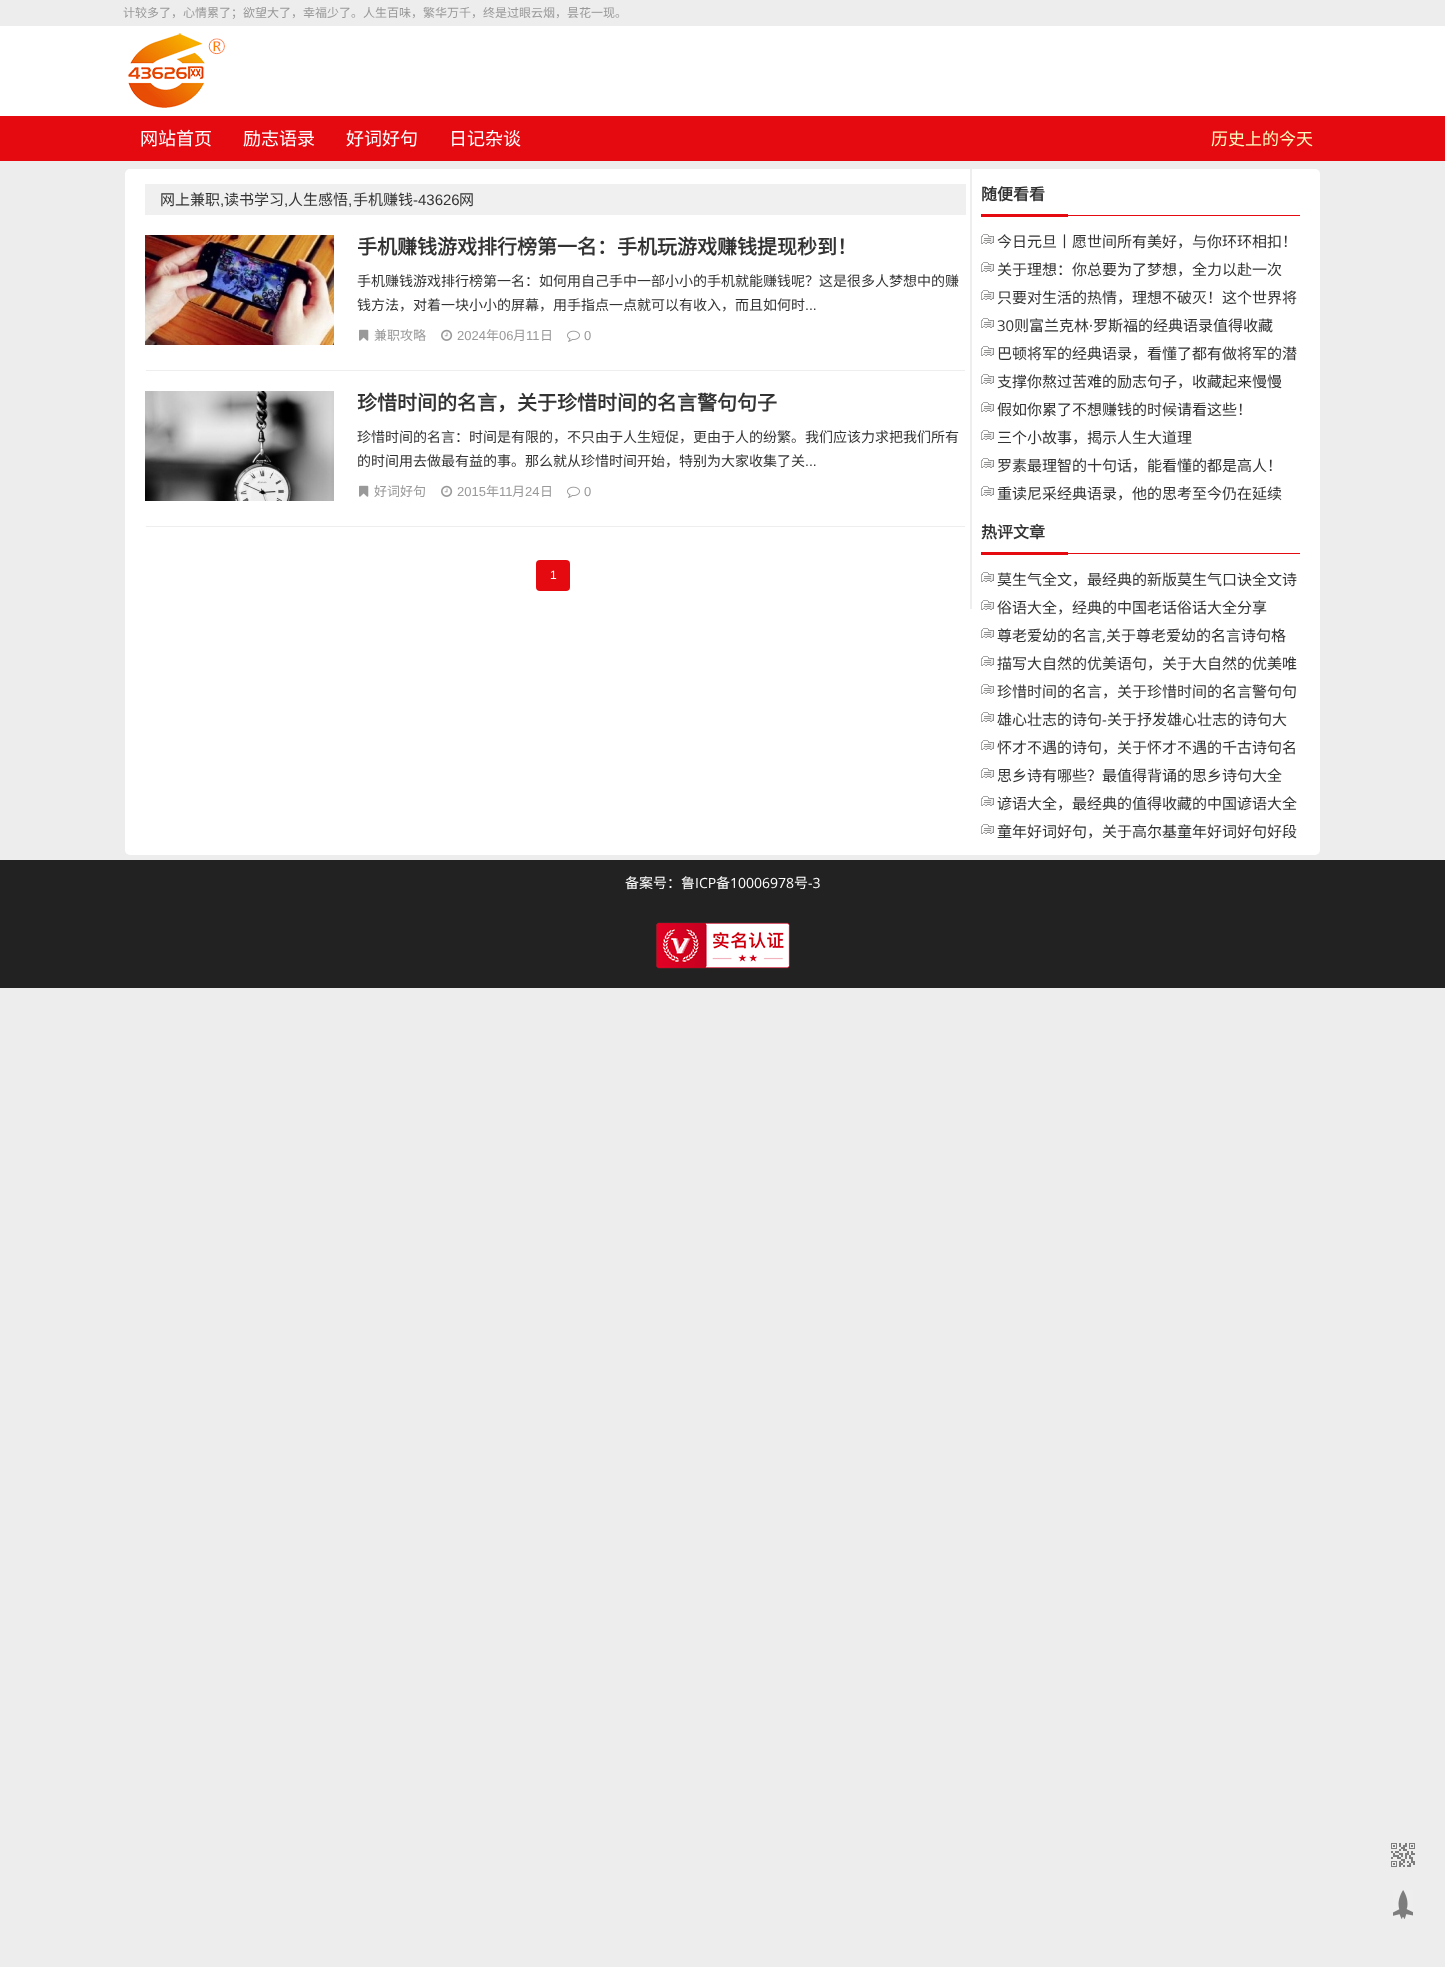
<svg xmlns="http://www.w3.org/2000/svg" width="1445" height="1967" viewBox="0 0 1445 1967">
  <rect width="100%" height="100%" fill="#ededed"/>
  <text x="123" y="17" font-family="Noto Sans CJK SC" font-size="12" fill="#999999">计较多了，心情累了；欲望大了，幸福少了。人生百味，繁华万千，终是过眼云烟，昙花一现。</text>
  <rect x="0" y="26" width="1445" height="90" fill="#ffffff"/>
  <image x="128" y="33" width="97" height="75" href="img1.png"/>
  <rect x="0" y="116" width="1445" height="45" fill="#e50a10"/>
  <text x="140" y="145" font-family="Noto Sans CJK SC" font-size="18" fill="#ffffff">网站首页</text>
  <text x="243" y="145" font-family="Noto Sans CJK SC" font-size="18" fill="#ffffff">励志语录</text>
  <text x="346" y="145" font-family="Noto Sans CJK SC" font-size="18" fill="#ffffff">好词好句</text>
  <text x="449" y="145" font-family="Noto Sans CJK SC" font-size="18" fill="#ffffff">日记杂谈</text>
  <text x="1211" y="145" font-family="Noto Sans CJK SC" font-size="17" fill="#fdfcbc">历史上的今天</text>
  <rect x="125" y="169" width="1195" height="686" rx="5" fill="#ffffff"/>
  <rect x="970" y="169" width="2" height="440" fill="#eeeeee"/>
  <rect x="145" y="184" width="821" height="31" fill="#f0f0f0"/>
  <text x="160" y="205" font-family="Noto Sans CJK SC" font-size="15" fill="#333333">网上兼职</text>
  <text x="220" y="205" font-family="Liberation Sans" font-size="15" fill="#333333">,</text>
  <text x="224" y="205" font-family="Noto Sans CJK SC" font-size="15" fill="#333333">读书学习</text>
  <text x="284" y="205" font-family="Liberation Sans" font-size="15" fill="#333333">,</text>
  <text x="288" y="205" font-family="Noto Sans CJK SC" font-size="15" fill="#333333">人生感悟</text>
  <text x="348" y="205" font-family="Liberation Sans" font-size="15" fill="#333333">,</text>
  <text x="353" y="205" font-family="Noto Sans CJK SC" font-size="15" fill="#333333">手机赚钱</text>
  <text x="413" y="205" font-family="Liberation Sans" font-size="15" fill="#333333">-43626</text>
  <text x="459" y="205" font-family="Noto Sans CJK SC" font-size="15" fill="#333333">网</text>
  <rect x="146" y="370" width="819" height="1" fill="#eeeeee"/>
  <image x="145" y="235" width="189" height="110" href="img2.png"/>
  <text x="357" y="254" font-family="Noto Sans CJK SC" font-size="20" font-weight="bold" fill="#333333">手机赚钱游戏排行榜第一名：手机玩游戏赚钱提现秒到！</text>
  <text x="357" y="286" font-family="Noto Sans CJK SC" font-size="14" fill="#333333">手机赚钱游戏排行榜第一名：如何用自己手中一部小小的手机就能赚钱呢？这是很多人梦想中的赚</text>
  <text x="357" y="310" font-family="Noto Sans CJK SC" font-size="14" fill="#333333">钱方法，对着一块小小的屏幕，用手指点一点就可以有收入，而且如何时</text>
  <text x="805" y="310" font-family="Liberation Sans" font-size="14" fill="#333333">...</text>
  <image x="359" y="329" width="10" height="12" href="img3.png"/>
  <text x="374" y="340" font-family="Noto Sans CJK SC" font-size="13" fill="#999999">兼职攻略</text>
  <image x="441" y="329" width="12" height="12" href="img4.png"/>
  <text x="457" y="340" font-family="Liberation Sans" font-size="13" fill="#999999">2024</text>
  <text x="486" y="340" font-family="Noto Sans CJK SC" font-size="13" fill="#999999">年</text>
  <text x="499" y="340" font-family="Liberation Sans" font-size="13" fill="#999999">06</text>
  <text x="513" y="340" font-family="Noto Sans CJK SC" font-size="13" fill="#999999">月</text>
  <text x="526" y="340" font-family="Liberation Sans" font-size="13" fill="#999999">11</text>
  <text x="540" y="340" font-family="Noto Sans CJK SC" font-size="13" fill="#999999">日</text>
  <image x="567" y="330" width="13" height="12" href="img5.png"/>
  <text x="584" y="340" font-family="Liberation Sans" font-size="13" fill="#999999">0</text>
  <rect x="146" y="526" width="819" height="1" fill="#eeeeee"/>
  <image x="145" y="391" width="189" height="110" href="img6.png"/>
  <text x="357" y="410" font-family="Noto Sans CJK SC" font-size="20" font-weight="bold" fill="#333333">珍惜时间的名言，关于珍惜时间的名言警句句子</text>
  <text x="357" y="442" font-family="Noto Sans CJK SC" font-size="14" fill="#333333">珍惜时间的名言：时间是有限的，不只由于人生短促，更由于人的纷繁。我们应该力求把我们所有</text>
  <text x="357" y="466" font-family="Noto Sans CJK SC" font-size="14" fill="#333333">的时间用去做最有益的事。那么就从珍惜时间开始，特别为大家收集了关</text>
  <text x="805" y="466" font-family="Liberation Sans" font-size="14" fill="#333333">...</text>
  <image x="359" y="485" width="10" height="12" href="img3.png"/>
  <text x="374" y="496" font-family="Noto Sans CJK SC" font-size="13" fill="#999999">好词好句</text>
  <image x="441" y="485" width="12" height="12" href="img4.png"/>
  <text x="457" y="496" font-family="Liberation Sans" font-size="13" fill="#999999">2015</text>
  <text x="486" y="496" font-family="Noto Sans CJK SC" font-size="13" fill="#999999">年</text>
  <text x="499" y="496" font-family="Liberation Sans" font-size="13" fill="#999999">11</text>
  <text x="512" y="496" font-family="Noto Sans CJK SC" font-size="13" fill="#999999">月</text>
  <text x="525" y="496" font-family="Liberation Sans" font-size="13" fill="#999999">24</text>
  <text x="540" y="496" font-family="Noto Sans CJK SC" font-size="13" fill="#999999">日</text>
  <image x="567" y="486" width="13" height="12" href="img5.png"/>
  <text x="584" y="496" font-family="Liberation Sans" font-size="13" fill="#999999">0</text>
  <rect x="536" y="560" width="34" height="31" rx="4" fill="#e50a10"/>
  <text x="550" y="579" font-family="Liberation Sans" font-size="12" fill="#ffffff">1</text>
  <rect x="981" y="214" width="87" height="3" fill="#e50a10"/>
  <text x="981" y="200" font-family="Noto Sans CJK SC" font-size="16" font-weight="bold" fill="#333333">随便看看</text>
  <rect x="1068" y="215" width="232" height="1" fill="#e50a10"/>
  <image x="981" y="234" width="13" height="10" href="img7.png"/>
  <text x="997" y="247" font-family="Noto Sans CJK SC" font-size="15" fill="#333333">今日元旦丨愿世间所有美好，与你环环相扣！</text>
  <image x="981" y="262" width="13" height="10" href="img7.png"/>
  <text x="997" y="275" font-family="Noto Sans CJK SC" font-size="15" fill="#333333">关于理想：你总要为了梦想，全力以赴一次</text>
  <image x="981" y="290" width="13" height="10" href="img7.png"/>
  <text x="997" y="303" font-family="Noto Sans CJK SC" font-size="15" fill="#333333">只要对生活的热情，理想不破灭！这个世界将</text>
  <image x="981" y="318" width="13" height="10" href="img7.png"/>
  <text x="997" y="331" font-family="Open Sans" font-size="15" fill="#333333">30</text>
  <text x="1014" y="331" font-family="Noto Sans CJK SC" font-size="15" fill="#333333">则富兰克林</text>
  <text x="1089" y="331" font-family="Open Sans" font-size="15" fill="#333333">·</text>
  <text x="1093" y="331" font-family="Noto Sans CJK SC" font-size="15" fill="#333333">罗斯福的经典语录值得收藏</text>
  <image x="981" y="346" width="13" height="10" href="img7.png"/>
  <text x="997" y="359" font-family="Noto Sans CJK SC" font-size="15" fill="#333333">巴顿将军的经典语录，看懂了都有做将军的潜</text>
  <image x="981" y="374" width="13" height="10" href="img7.png"/>
  <text x="997" y="387" font-family="Noto Sans CJK SC" font-size="15" fill="#333333">支撑你熬过苦难的励志句子，收藏起来慢慢</text>
  <image x="981" y="402" width="13" height="10" href="img7.png"/>
  <text x="997" y="415" font-family="Noto Sans CJK SC" font-size="15" fill="#333333">假如你累了不想赚钱的时候请看这些！</text>
  <image x="981" y="430" width="13" height="10" href="img7.png"/>
  <text x="997" y="443" font-family="Noto Sans CJK SC" font-size="15" fill="#333333">三个小故事，揭示人生大道理</text>
  <image x="981" y="458" width="13" height="10" href="img7.png"/>
  <text x="997" y="471" font-family="Noto Sans CJK SC" font-size="15" fill="#333333">罗素最理智的十句话，能看懂的都是高人！</text>
  <image x="981" y="486" width="13" height="10" href="img7.png"/>
  <text x="997" y="499" font-family="Noto Sans CJK SC" font-size="15" fill="#333333">重读尼采经典语录，他的思考至今仍在延续</text>
  <rect x="981" y="552" width="87" height="3" fill="#e50a10"/>
  <text x="981" y="538" font-family="Noto Sans CJK SC" font-size="16" font-weight="bold" fill="#333333">热评文章</text>
  <rect x="1068" y="553" width="232" height="1" fill="#e50a10"/>
  <image x="981" y="572" width="13" height="10" href="img7.png"/>
  <text x="997" y="585" font-family="Noto Sans CJK SC" font-size="15" fill="#333333">莫生气全文，最经典的新版莫生气口诀全文诗</text>
  <image x="981" y="600" width="13" height="10" href="img7.png"/>
  <text x="997" y="613" font-family="Noto Sans CJK SC" font-size="15" fill="#333333">俗语大全，经典的中国老话俗话大全分享</text>
  <image x="981" y="628" width="13" height="10" href="img7.png"/>
  <text x="997" y="641" font-family="Noto Sans CJK SC" font-size="15" fill="#333333">尊老爱幼的名言</text>
  <text x="1102" y="641" font-family="Open Sans" font-size="15" fill="#333333">,</text>
  <text x="1106" y="641" font-family="Noto Sans CJK SC" font-size="15" fill="#333333">关于尊老爱幼的名言诗句格</text>
  <image x="981" y="656" width="13" height="10" href="img7.png"/>
  <text x="997" y="669" font-family="Noto Sans CJK SC" font-size="15" fill="#333333">描写大自然的优美语句，关于大自然的优美唯</text>
  <image x="981" y="684" width="13" height="10" href="img7.png"/>
  <text x="997" y="697" font-family="Noto Sans CJK SC" font-size="15" fill="#333333">珍惜时间的名言，关于珍惜时间的名言警句句</text>
  <image x="981" y="712" width="13" height="10" href="img7.png"/>
  <text x="997" y="725" font-family="Noto Sans CJK SC" font-size="15" fill="#333333">雄心壮志的诗句</text>
  <text x="1102" y="725" font-family="Open Sans" font-size="15" fill="#333333">-</text>
  <text x="1107" y="725" font-family="Noto Sans CJK SC" font-size="15" fill="#333333">关于抒发雄心壮志的诗句大</text>
  <image x="981" y="740" width="13" height="10" href="img7.png"/>
  <text x="997" y="753" font-family="Noto Sans CJK SC" font-size="15" fill="#333333">怀才不遇的诗句，关于怀才不遇的千古诗句名</text>
  <image x="981" y="768" width="13" height="10" href="img7.png"/>
  <text x="997" y="781" font-family="Noto Sans CJK SC" font-size="15" fill="#333333">思乡诗有哪些？最值得背诵的思乡诗句大全</text>
  <image x="981" y="796" width="13" height="10" href="img7.png"/>
  <text x="997" y="809" font-family="Noto Sans CJK SC" font-size="15" fill="#333333">谚语大全，最经典的值得收藏的中国谚语大全</text>
  <image x="981" y="824" width="13" height="10" href="img7.png"/>
  <text x="997" y="837" font-family="Noto Sans CJK SC" font-size="15" fill="#333333">童年好词好句，关于高尔基童年好词好句好段</text>
  <rect x="0" y="860" width="1445" height="128" fill="#222222"/>
  <text x="625" y="888" font-family="Noto Sans CJK SC" font-size="14" fill="#ffffff">备案号：鲁</text>
  <text x="695" y="888" font-family="Open Sans" font-size="14" fill="#ffffff">ICP</text>
  <text x="716" y="888" font-family="Noto Sans CJK SC" font-size="14" fill="#ffffff">备</text>
  <text x="730" y="888" font-family="Open Sans" font-size="14" fill="#ffffff">10006978</text>
  <text x="794" y="888" font-family="Noto Sans CJK SC" font-size="14" fill="#ffffff">号</text>
  <text x="808" y="888" font-family="Open Sans" font-size="14" fill="#ffffff">-3</text>
  <image x="656" y="922" width="134" height="47" href="img8.png"/>
  <image x="1391" y="1843" width="24" height="24" href="img9.png"/>
  <image x="1393" y="1890" width="20" height="29" href="img10.png"/>
</svg>
